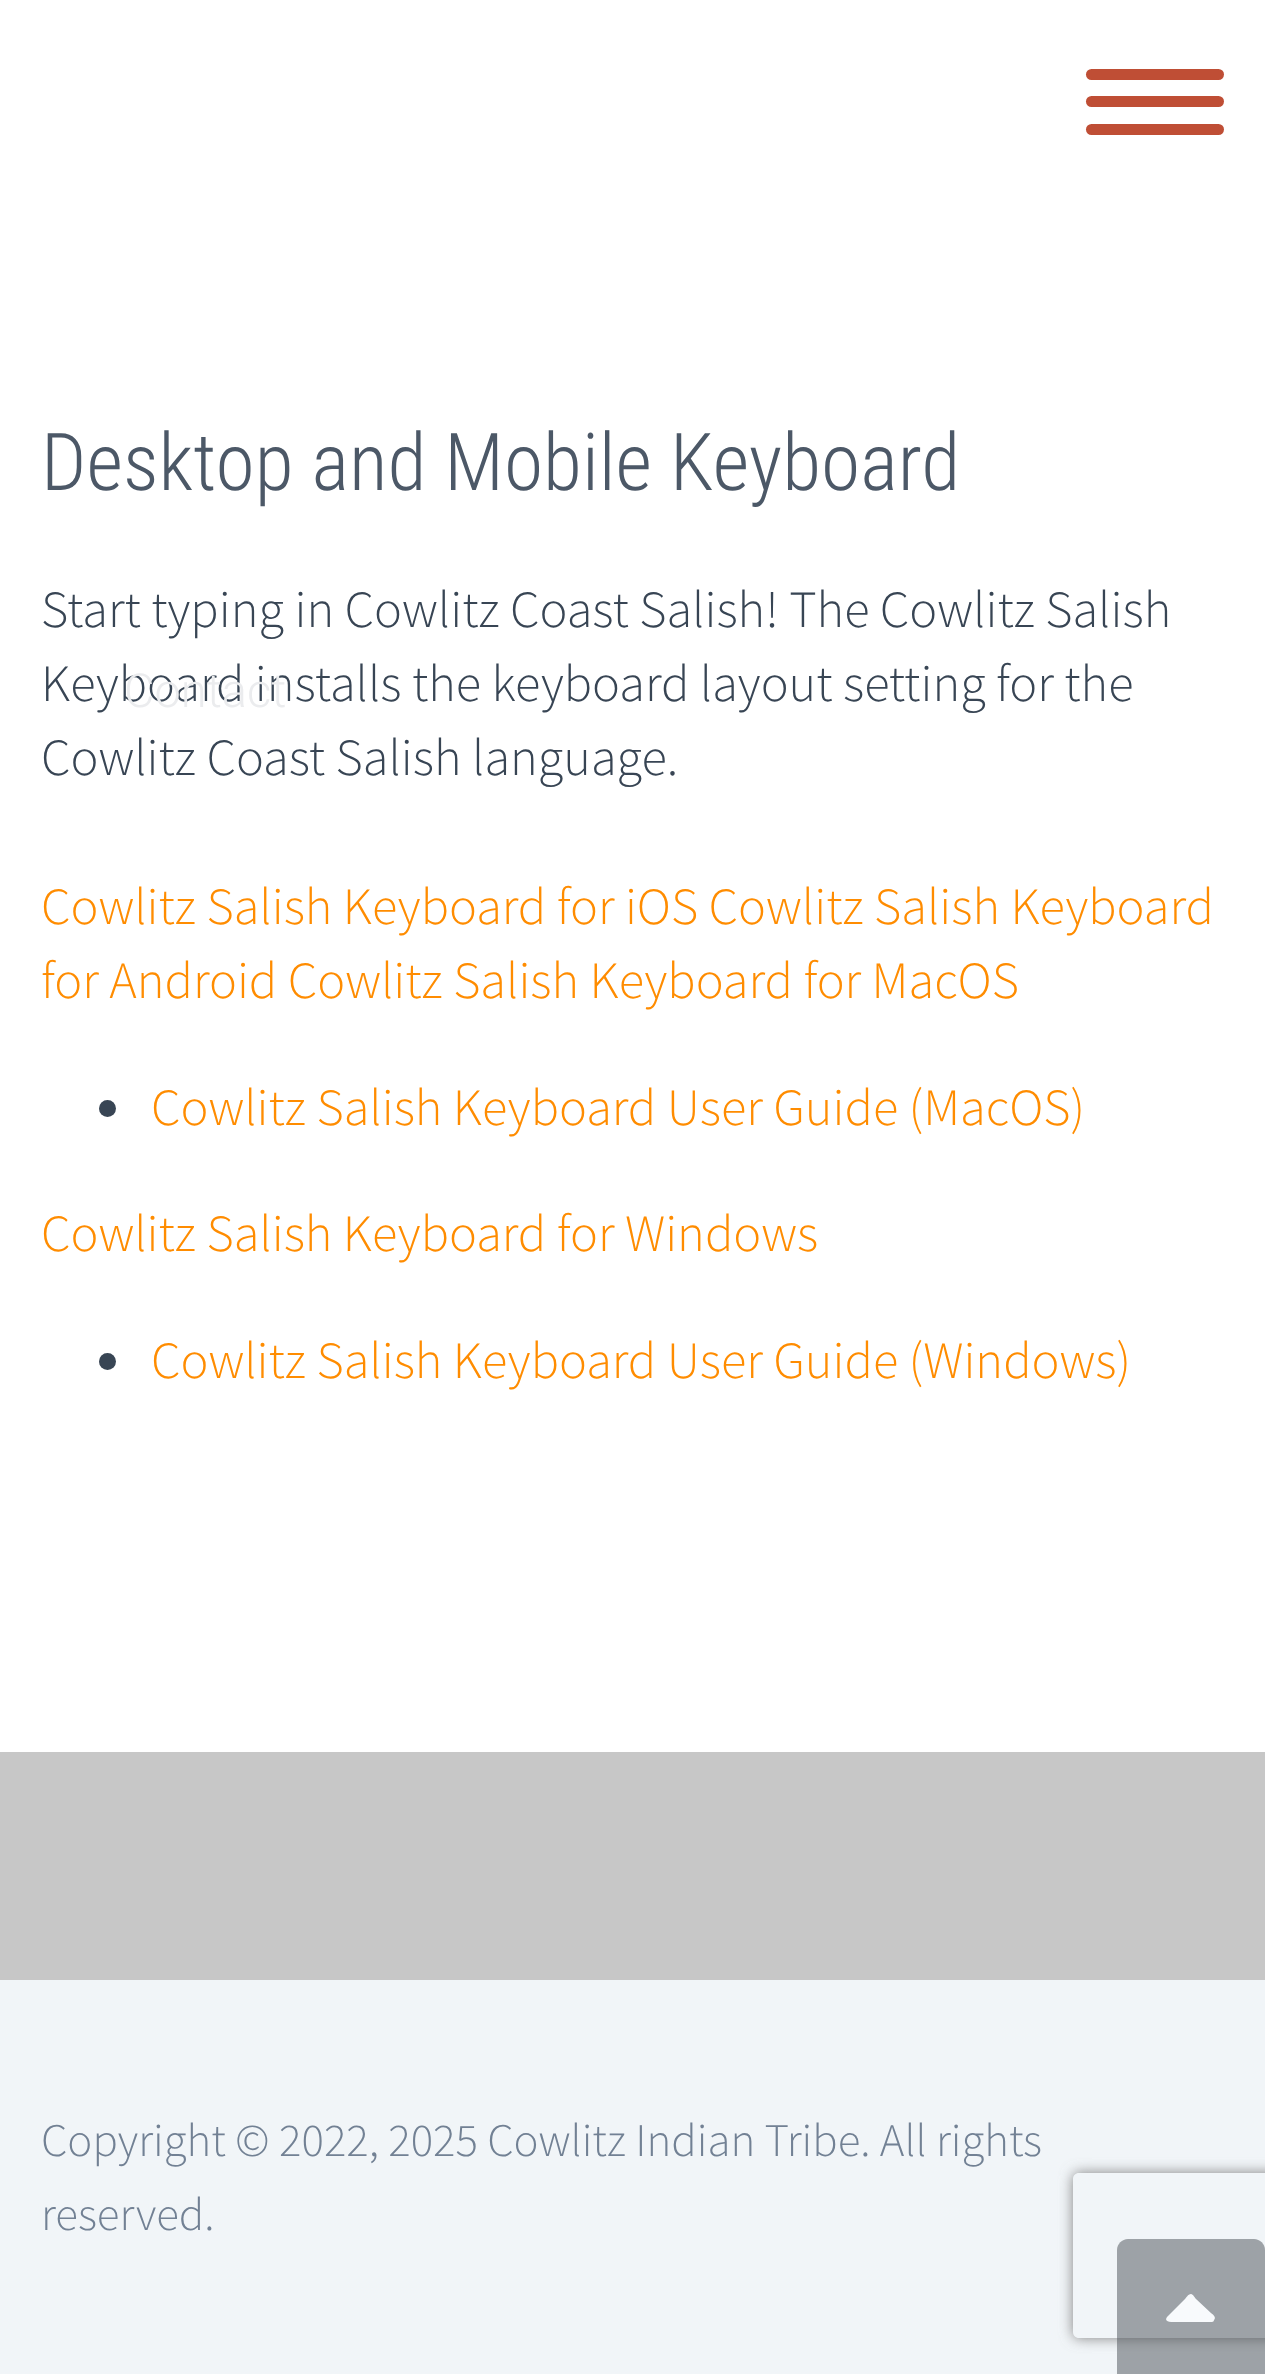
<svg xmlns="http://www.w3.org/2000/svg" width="1265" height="2374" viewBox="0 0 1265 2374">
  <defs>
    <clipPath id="clip1"><path d="M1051 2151H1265V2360H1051ZM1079 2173H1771C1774.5 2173 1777 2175.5 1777 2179V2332C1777 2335.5 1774.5 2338 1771 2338H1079C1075.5 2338 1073 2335.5 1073 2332V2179C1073 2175.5 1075.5 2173 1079 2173Z" clip-rule="evenodd"/></clipPath>
    <filter id="blur1" x="-50%" y="-200%" width="200%" height="500%"><feGaussianBlur stdDeviation="7"/></filter>
  </defs>
  <rect width="100%" height="100%" fill="#c7c7c7"/>
  <rect x="0" y="0" width="1265" height="1752" fill="#ffffff"/>
  <text x="41" y="490" font-family="Roboto Condensed" font-size="79.75" font-weight="300" fill="#4c5867">Desktop and Mobile Keyboard</text>
  <text x="41" y="627" font-family="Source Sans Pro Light" font-size="52.25" font-weight="300" fill="#384554">Start typing in Cowlitz Coast Salish! The Cowlitz Salish</text>
  <text x="41" y="701" font-family="Source Sans Pro Light" font-size="52.25" font-weight="300" fill="#384554">Keyboard installs the keyboard layout setting for the</text>
  <text x="41" y="775" font-family="Source Sans Pro Light" font-size="52.25" font-weight="300" fill="#384554">Cowlitz Coast Salish language.</text>
  <text x="41" y="924" font-family="Source Sans Pro Light" font-size="52.25" font-weight="300" fill="#ff8c00">Cowlitz Salish Keyboard for iOS Cowlitz Salish Keyboard</text>
  <text x="41" y="998" font-family="Source Sans Pro Light" font-size="52.25" font-weight="300" fill="#ff8c00">for Android Cowlitz Salish Keyboard for MacOS</text>
  <circle cx="107.5" cy="1108.5" r="8.5" fill="#384554"/>
  <text x="151" y="1125" font-family="Source Sans Pro Light" font-size="52.25" font-weight="300" fill="#ff8c00">Cowlitz Salish Keyboard User Guide (MacOS)</text>
  <text x="41" y="1251" font-family="Source Sans Pro Light" font-size="52.25" font-weight="300" fill="#ff8c00">Cowlitz Salish Keyboard for Windows</text>
  <circle cx="107.5" cy="1361.5" r="8.5" fill="#384554"/>
  <text x="151" y="1378" font-family="Source Sans Pro Light" font-size="52.25" font-weight="300" fill="#ff8c00">Cowlitz Salish Keyboard User Guide (Windows)</text>
  <rect x="1086" y="124" width="138" height="11" rx="5.5" fill="#bf4e35"/>
  <rect x="1086" y="96" width="138" height="11" rx="5.5" fill="#bf4e35"/>
  <rect x="1086" y="69" width="138" height="11" rx="5.5" fill="#bf4e35"/>
  <text x="124" y="707" font-family="Roboto" font-size="47" font-weight="300" fill="#ebecee">Contact</text>
  <rect x="0" y="1980" width="1265" height="394" fill="#f1f5f8"/>
  <text x="41" y="2156" font-family="Source Sans Pro Light" font-size="46.75" font-weight="300" fill="#728194">Copyright © 2022, 2025 Cowlitz Indian Tribe. All rights</text>
  <text x="41" y="2230" font-family="Source Sans Pro Light" font-size="46.75" font-weight="300" fill="#728194">reserved.</text>
  <g clip-path="url(#clip1)">
    <rect x="1073" y="2173" width="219" height="165" rx="6" fill="#808080" filter="url(#blur1)"/>
  </g>
  <path d="M1128 2239H1254C1260 2239 1265 2244 1265 2250V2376H1117V2250C1117 2244 1122 2239 1128 2239Z" fill="#4a4f56" fill-opacity="0.5"/>
  <path d="M1191 2294C1193 2294 1195 2298 1196 2299L1211 2313C1212 2314 1217 2317 1214 2320C1214 2321 1213 2322 1212 2322H1184C1173 2322 1163 2323 1167 2317L1185 2299C1186 2298 1188 2294 1191 2294Z" fill="#f8fafc"/>
</svg>
